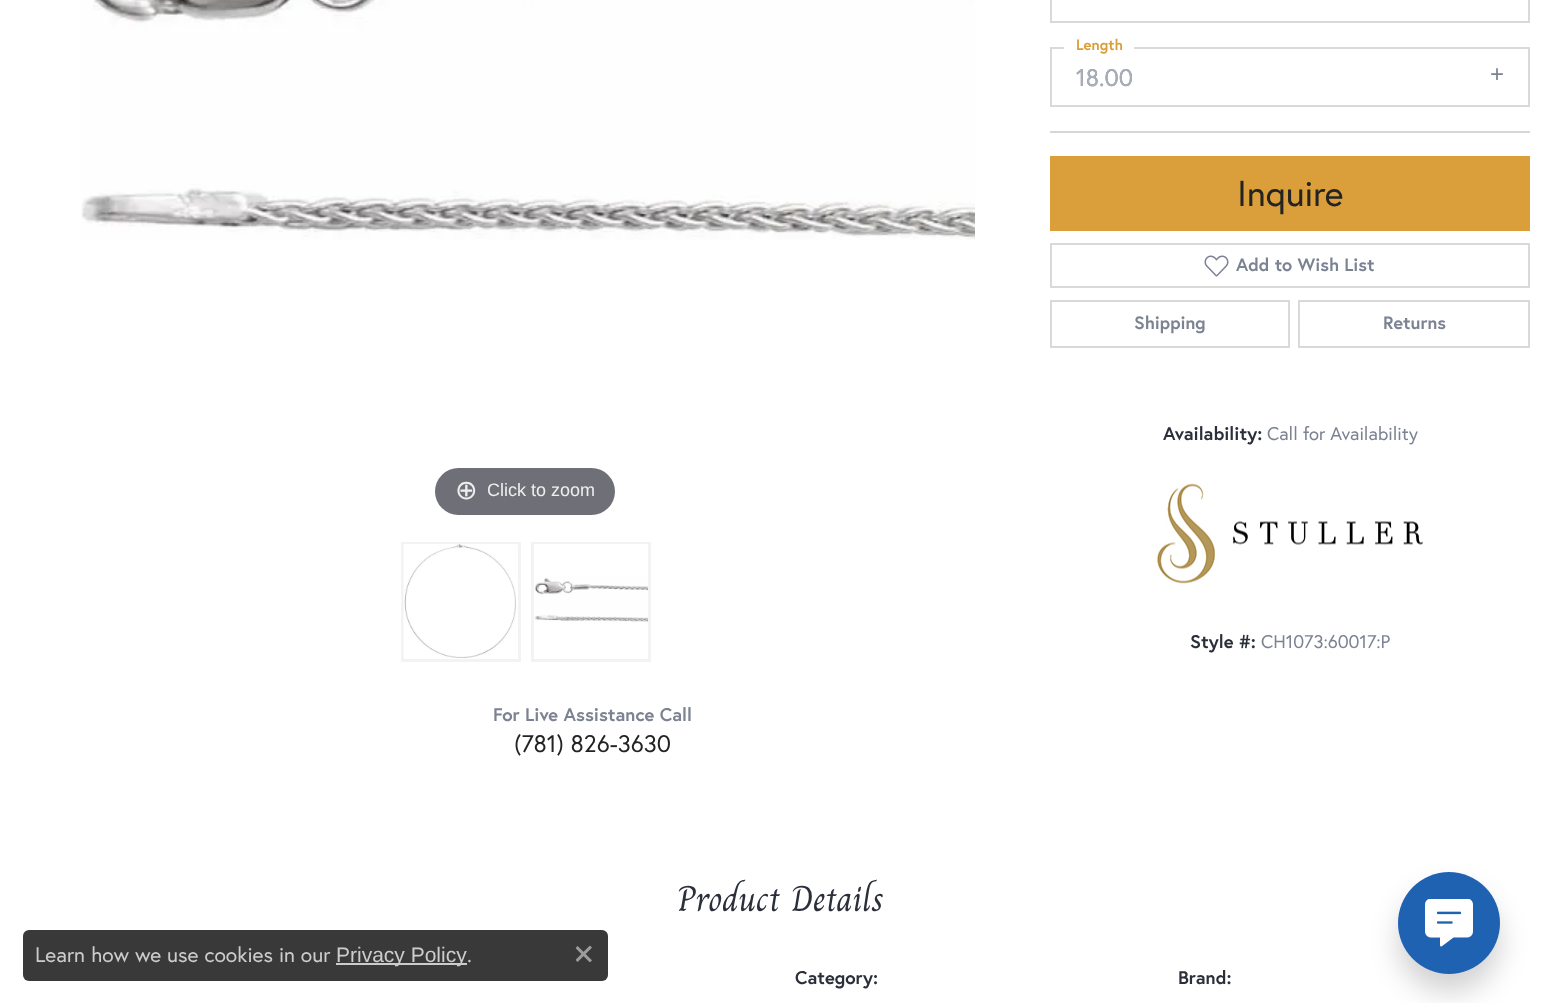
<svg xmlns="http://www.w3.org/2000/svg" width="1560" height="1003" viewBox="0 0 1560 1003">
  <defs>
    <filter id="blur1" x="-50%" y="-200%" width="200%" height="500%"><feGaussianBlur stdDeviation="14"/></filter>
  </defs>
  <rect width="100%" height="100%" fill="#ffffff"/>
  <image x="81" y="0" width="894" height="240" href="img1.png"/>
  <rect x="435" y="468" width="180" height="47" rx="23.5" fill="#6f7077"/>
  <text x="455" y="499" font-family="DejaVu Sans" font-size="27" fill="#eeeeee">⊕</text>
  <text x="487" y="496" font-family="Liberation Sans" font-size="18" fill="#eeeeee">Click to zoom</text>
  <rect x="402.5" y="543.5" width="117" height="117" fill="none" stroke="#f2f3f4" stroke-width="3"/>
  <image x="403" y="544" width="115" height="114" href="img2.png"/>
  <rect x="532.5" y="543.5" width="117" height="117" fill="none" stroke="#f2f3f4" stroke-width="3"/>
  <image x="534" y="544" width="114" height="78" href="img3.png"/>
  <text x="493" y="721" font-family="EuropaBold" font-size="18.4" font-weight="bold" fill="#7b8292">For Live Assistance Call</text>
  <text x="514" y="752" font-family="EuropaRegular" font-size="24" fill="#232324">(781) 826-3630</text>
  <rect x="1051" y="-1" width="478" height="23" fill="none" stroke="#d9d9d9" stroke-width="2"/>
  <rect x="1051" y="48" width="478" height="58" fill="none" stroke="#d9d9d9" stroke-width="2"/>
  <rect x="1064" y="47" width="70" height="2" fill="#ffffff"/>
  <text x="1076" y="50" font-family="EuropaBold" font-size="15" font-weight="bold" fill="#da9f3a">Length</text>
  <text x="1076" y="86" font-family="EuropaRegular" font-size="24" fill="#7b8292">18.00</text>
  <text x="1490" y="82" font-family="Liberation Sans" font-size="24" fill="#7b8292">+</text>
  <text x="1076" y="86" font-family="EuropaRegular" font-size="24" fill="#a9aeb8">18.00</text>
  <rect x="1050" y="131" width="480" height="2" fill="#d6d6d6"/>
  <rect x="1050" y="156" width="480" height="75" fill="#da9f3a"/>
  <text x="1237" y="206" font-family="EuropaRegular" font-size="36" fill="#232324">Inquire</text>
  <rect x="1051" y="244" width="478" height="43" fill="none" stroke="#d9d9d9" stroke-width="2"/>
  <image x="1204" y="255" width="25" height="22" href="img4.png"/>
  <text x="1236" y="271" font-family="EuropaBold" font-size="18" font-weight="bold" fill="#7b8292">Add to Wish List</text>
  <rect x="1051" y="301" width="238" height="46" fill="none" stroke="#d9d9d9" stroke-width="2"/>
  <text x="1134" y="329" font-family="EuropaBold" font-size="18" font-weight="bold" fill="#7b8292">Shipping</text>
  <rect x="1299" y="301" width="230" height="46" fill="none" stroke="#d9d9d9" stroke-width="2"/>
  <text x="1383" y="329" font-family="EuropaBold" font-size="18" font-weight="bold" fill="#7b8292">Returns</text>
  <text x="1163" y="440" font-family="EuropaBold" font-size="18.4" font-weight="bold" fill="#2b2f3a">Availability:</text>
  <text x="1267" y="440" font-family="EuropaRegular" font-size="18.4" fill="#7b8292">Call for Availability</text>
  <image x="1157" y="483" width="266" height="101" href="img5.png"/>
  <text x="1190" y="648" font-family="EuropaBold" font-size="18.4" font-weight="bold" fill="#2b2f3a">Style #:</text>
  <text x="1261" y="648" font-family="EuropaRegular" font-size="18.4" fill="#7b8292">CH1073:60017:P</text>
  <text x="677" y="911" font-family="Charm" font-size="36" fill="#2b2f3a">Product Details</text>
  <text x="795" y="984" font-family="EuropaBold" font-size="18.4" font-weight="bold" fill="#2b2f3a">Category:</text>
  <text x="1178" y="984" font-family="EuropaBold" font-size="18.4" font-weight="bold" fill="#2b2f3a">Brand:</text>
  <rect x="23" y="930" width="585" height="51" rx="6" fill="#232324" fill-opacity="0.9"/>
  <text x="35" y="962" font-family="EuropaRegular" font-size="21" fill="#cccccc">Learn how we use cookies in our</text>
  <rect x="336" y="963" width="131" height="2" fill="#cccccc"/>
  <text x="336" y="962" font-family="Liberation Sans" font-size="21" fill="#cccccc">Privacy Policy</text>
  <text x="467" y="962" font-family="EuropaRegular" font-size="21" fill="#cccccc">.</text>
  <image x="575" y="945" width="17" height="18" href="img6.png"/>
  <rect x="1398" y="890" width="102" height="102" rx="51" fill="#000000" fill-opacity="0.18" filter="url(#blur1)"/>
  <circle cx="1449" cy="923" r="51" fill="#1f62b1"/>
  <image x="1425" y="899" width="48" height="48" href="img7.png"/>
</svg>
